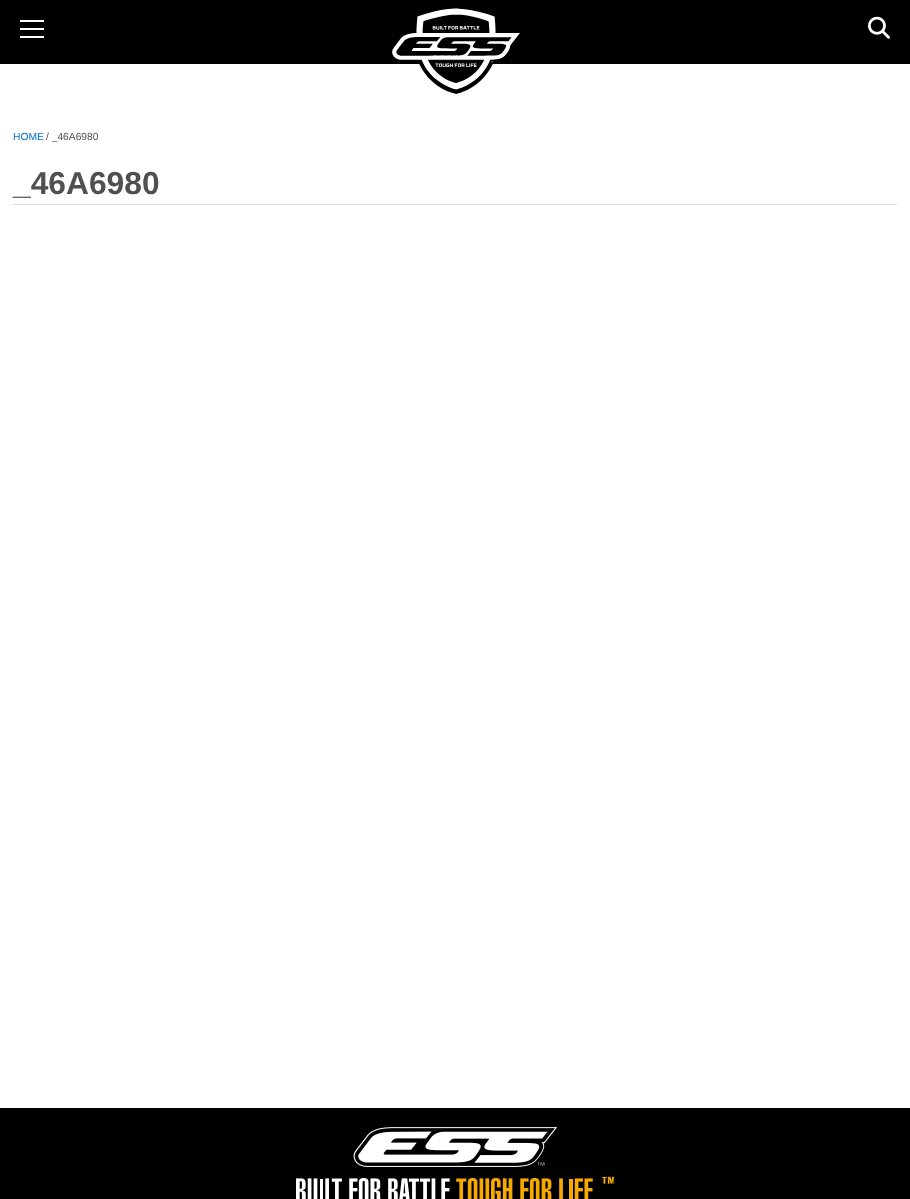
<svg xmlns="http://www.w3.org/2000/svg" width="910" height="1199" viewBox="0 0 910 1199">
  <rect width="100%" height="100%" fill="#ffffff"/>
  <rect x="0" y="0" width="910" height="64" fill="#000000"/>
  <rect x="20" y="20" width="24" height="2" fill="#ffffff"/>
  <rect x="20" y="28" width="24" height="2" fill="#ffffff"/>
  <rect x="20" y="36" width="24" height="2" fill="#ffffff"/>
  <image x="392" y="8" width="128" height="86" href="img1.png"/>
  <image x="868" y="16" width="22" height="23" href="img2.png"/>
  <text x="13" y="140" font-family="Liberation Sans" font-size="10.25" fill="#0070c9">HOME</text>
  <text x="46" y="140" font-family="Liberation Sans" font-size="10.25" fill="#505050">/ _46A6980</text>
  <rect x="13" y="204" width="884" height="1" fill="#dddddd"/>
  <text x="13" y="194" font-family="Liberation Sans" font-size="31.75" font-weight="bold" fill="#505050">_46A6980</text>
  <rect x="0" y="1108" width="910" height="91" fill="#000000"/>
  <image x="296" y="1127" width="318" height="72" href="img3.png"/>
</svg>
